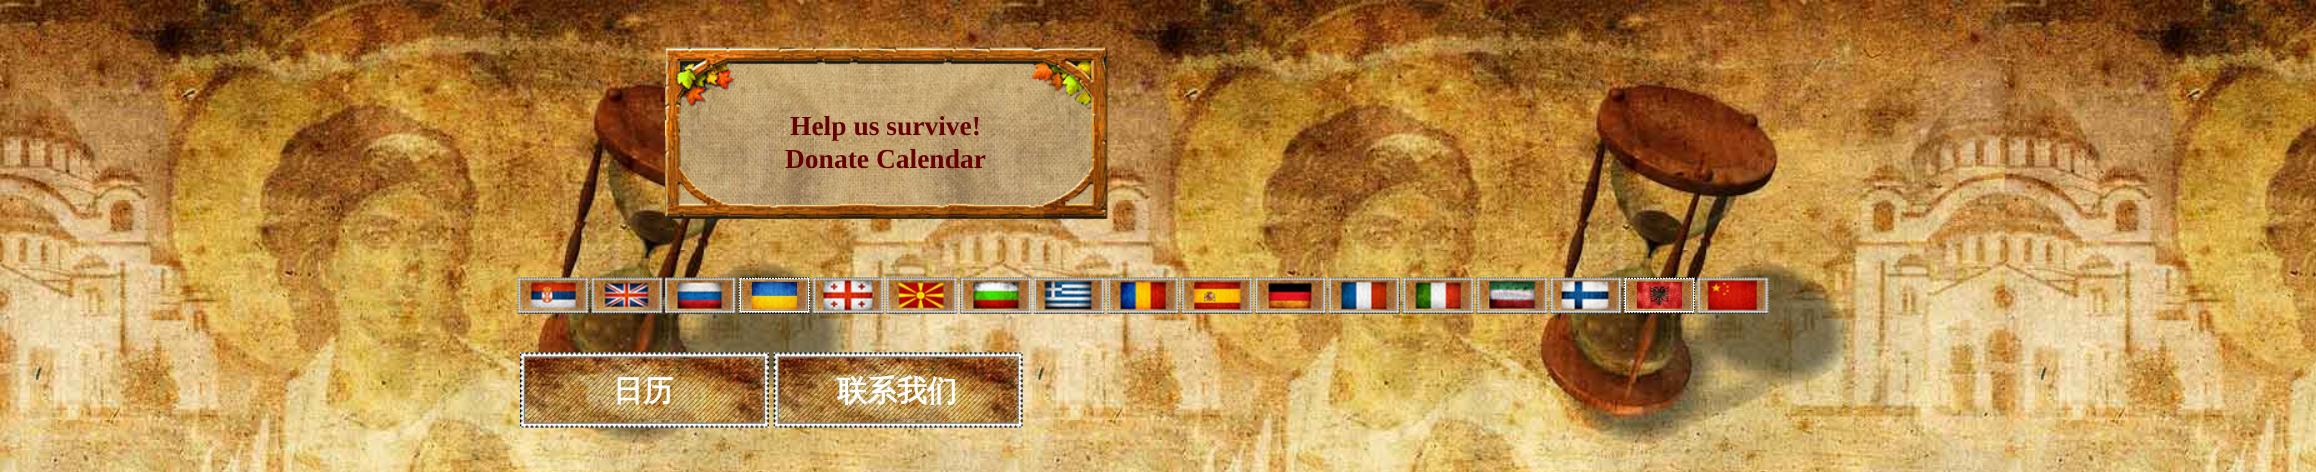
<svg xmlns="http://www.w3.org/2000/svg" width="2316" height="472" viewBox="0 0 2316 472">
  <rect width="100%" height="100%" fill="#ffffff"/>
  <image x="0" y="0" width="2316" height="472" href="img1.png"/>
  <image x="665" y="47" width="443" height="172" href="img2.png"/>
  <text x="790" y="135" font-family="Liberation Serif" font-size="27.5" font-weight="bold" fill="#660000">Help us survive!</text>
  <text x="785" y="168" font-family="Liberation Serif" font-size="27.5" font-weight="bold" fill="#660000">Donate Calendar</text>
  <image x="517" y="277" width="72" height="37" href="img3.png"/>
  <image x="591" y="277" width="72" height="37" href="img4.png"/>
  <image x="665" y="277" width="72" height="37" href="img5.png"/>
  <image x="738" y="277" width="72" height="37" href="img6.png"/>
  <image x="812" y="277" width="72" height="37" href="img7.png"/>
  <image x="886" y="277" width="72" height="37" href="img8.png"/>
  <image x="960" y="277" width="72" height="37" href="img9.png"/>
  <image x="1033" y="277" width="72" height="37" href="img10.png"/>
  <image x="1107" y="277" width="72" height="37" href="img11.png"/>
  <image x="1181" y="277" width="72" height="37" href="img12.png"/>
  <image x="1255" y="277" width="72" height="37" href="img13.png"/>
  <image x="1328" y="277" width="72" height="37" href="img14.png"/>
  <image x="1402" y="277" width="72" height="37" href="img15.png"/>
  <image x="1476" y="277" width="72" height="37" href="img16.png"/>
  <image x="1550" y="277" width="72" height="37" href="img17.png"/>
  <image x="1623" y="277" width="72" height="37" href="img18.png"/>
  <image x="1697" y="277" width="72" height="37" href="img19.png"/>
  <image x="520" y="352" width="249" height="76" href="img20.png"/>
  <image x="520" y="352" width="249" height="76" href="img21.png"/>
  <text x="613" y="401" font-family="WenQuanYi Zen Hei" font-size="30" font-weight="bold" fill="#ffffff">日历</text>
  <image x="773" y="352" width="250" height="76" href="img22.png"/>
  <image x="773" y="352" width="250" height="76" href="img23.png"/>
  <text x="837" y="401" font-family="WenQuanYi Zen Hei" font-size="30" font-weight="bold" fill="#ffffff">联系我们</text>
</svg>
